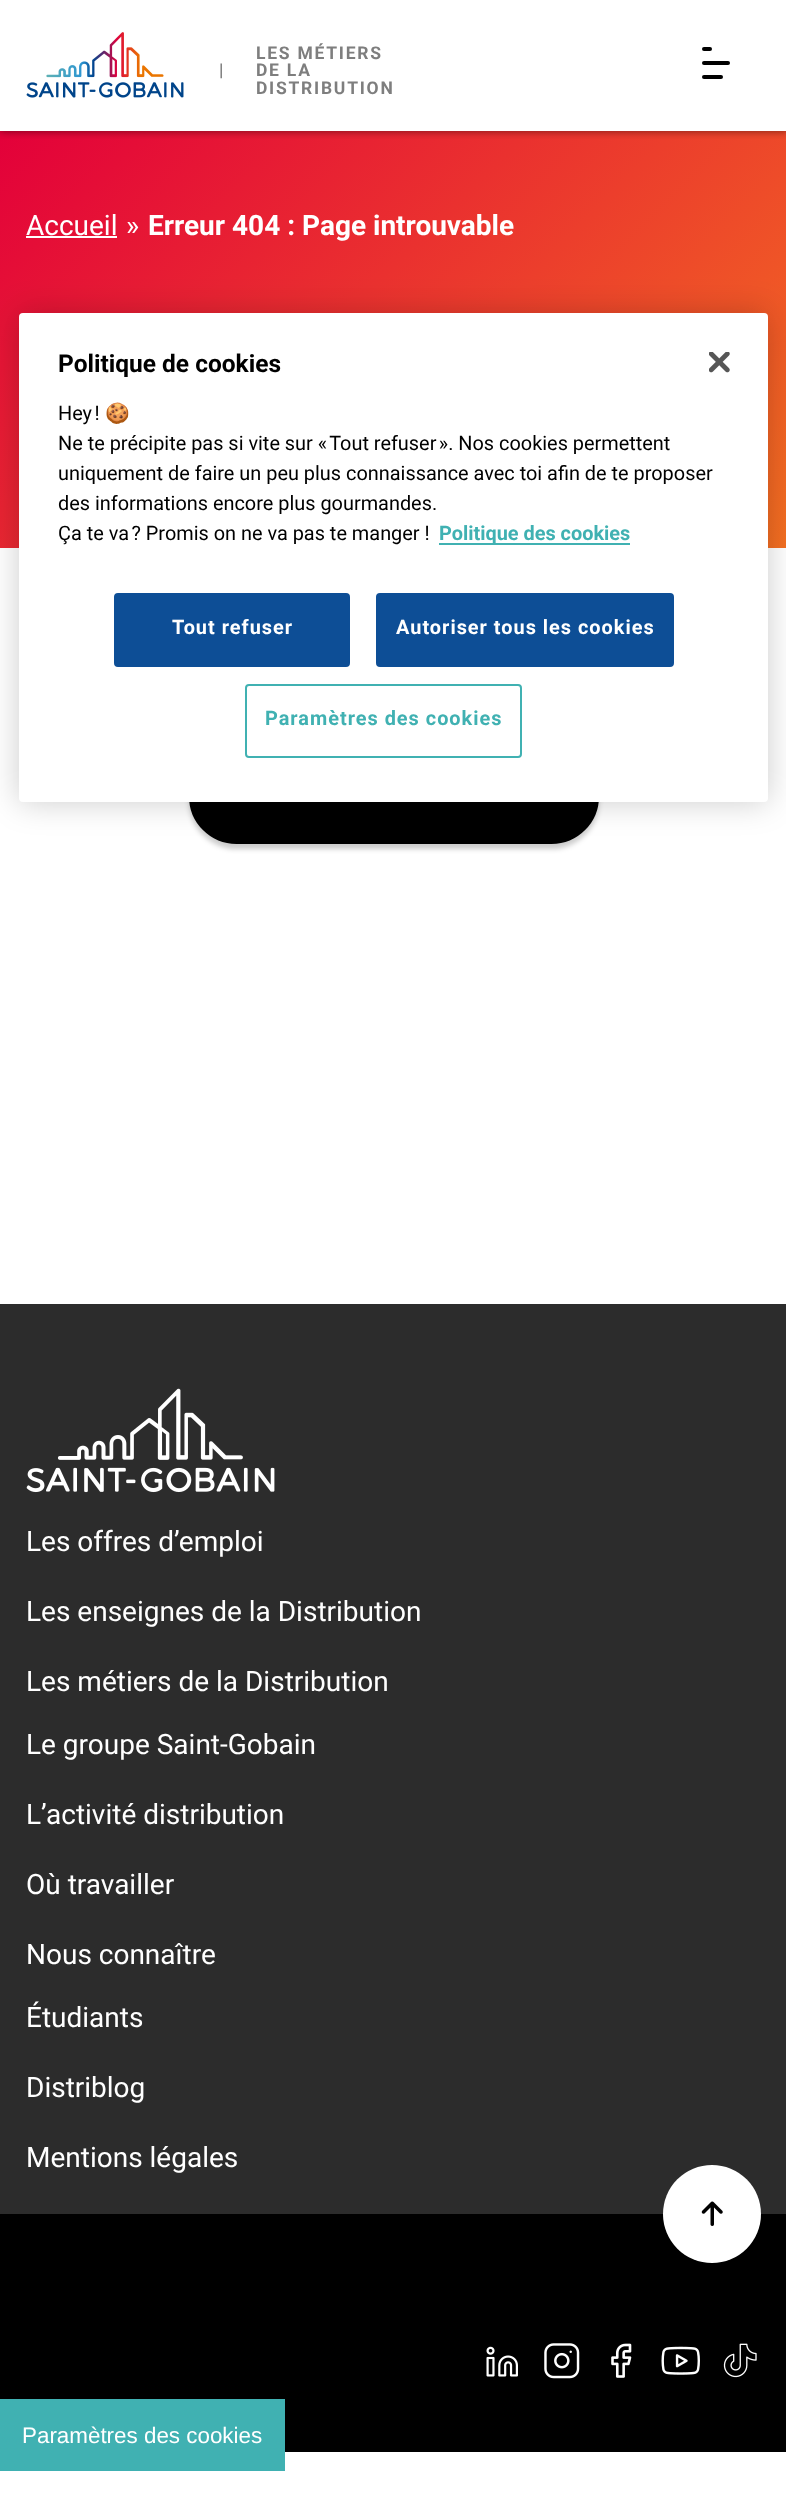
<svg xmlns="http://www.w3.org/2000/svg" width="786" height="2505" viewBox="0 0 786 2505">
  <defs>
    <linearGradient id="g1" gradientUnits="userSpaceOnUse" x1="93" y1="39" x2="695" y2="641"><stop offset="0" stop-color="#e3003a"/><stop offset="1" stop-color="#f36f21"/></linearGradient>
    <clipPath id="clip1"><rect x="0" y="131" width="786" height="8"/></clipPath>
    <filter id="blur1" x="-50%" y="-200%" width="200%" height="500%"><feGaussianBlur stdDeviation="4.5"/></filter>
    <filter id="blur2" x="-50%" y="-200%" width="200%" height="500%"><feGaussianBlur stdDeviation="2.5"/></filter>
    <filter id="blur3" x="-50%" y="-200%" width="200%" height="500%"><feGaussianBlur stdDeviation="16"/></filter>
  </defs>
  <rect width="100%" height="100%" fill="#ffffff"/>
  <rect x="0" y="131" width="786" height="417" fill="url(#g1)"/>
  <g clip-path="url(#clip1)">
    <rect x="0" y="0" width="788" height="131" fill="#000000" fill-opacity="0.5" filter="url(#blur1)"/>
  </g>
  <image x="26" y="32" width="158" height="66" href="img1.png"/>
  <text x="256" y="59" font-family="Roboto" font-size="17.5" font-weight="bold" letter-spacing="1.75" fill="#7e7e7e">LES MÉTIERS</text>
  <text x="219" y="76" font-family="Roboto" font-size="17.5" font-weight="bold" letter-spacing="1.75" fill="#7e7e7e">|</text>
  <text x="256" y="76" font-family="Roboto" font-size="17.5" font-weight="bold" letter-spacing="1.75" fill="#7e7e7e">DE LA</text>
  <text x="256" y="94" font-family="Roboto" font-size="17.5" font-weight="bold" letter-spacing="1.75" fill="#7e7e7e">DISTRIBUTION</text>
  <rect x="702" y="47" width="10" height="4" rx="2" fill="#000000"/>
  <rect x="702" y="61" width="28" height="4" rx="2" fill="#000000"/>
  <rect x="702" y="75" width="21" height="4" rx="2" fill="#000000"/>
  <text x="26" y="235" font-family="Roboto" font-size="28" fill="#ffffff">Accueil</text>
  <rect x="26" y="236" width="91" height="2" fill="#ffffff"/>
  <text x="126" y="235" font-family="Roboto" font-size="28" fill="#ffffff">»</text>
  <text x="148" y="235" font-family="Roboto" font-size="28" font-weight="bold" fill="#ffffff">Erreur 404 : Page introuvable</text>
  <rect x="189" y="754" width="410" height="95" rx="47.5" fill="#000000" fill-opacity="0.2" filter="url(#blur2)"/>
  <rect x="190" y="750" width="408" height="93" rx="46.5" fill="#000000" stroke="#000000" stroke-width="2"/>
  <rect x="19" y="313" width="749" height="489" rx="4" fill="#000000" fill-opacity="0.2" filter="url(#blur3)"/>
  <rect x="19" y="313" width="749" height="489" rx="4" fill="#ffffff"/>
  <text x="58" y="372" font-family="Roboto" font-size="24.5" font-weight="bold" fill="#000000">Politique de cookies</text>
  <text x="58" y="420" font-family="Roboto" font-size="19.9" fill="#000000">Hey !</text>
  <text x="105" y="420" font-family="Noto Color Emoji" font-size="19.9" fill="#000000">🍪</text>
  <text x="58" y="450" font-family="Roboto" font-size="19.9" fill="#000000">Ne te précipite pas si vite sur « Tout refuser ». Nos cookies permettent</text>
  <text x="58" y="480" font-family="Roboto" font-size="19.9" fill="#000000">uniquement de faire un peu plus connaissance avec toi afin de te proposer</text>
  <text x="58" y="510" font-family="Roboto" font-size="19.9" fill="#000000">des informations encore plus gourmandes.</text>
  <text x="58" y="540" font-family="Roboto" font-size="19.9" fill="#000000">Ça te va ? Promis on ne va pas te manger !</text>
  <rect x="439" y="543" width="191" height="2" fill="#40b1b2"/>
  <text x="439" y="540" font-family="Roboto" font-size="19.9" font-weight="bold" fill="#40b1b2">Politique des cookies</text>
  <image x="709" y="352" width="21" height="21" href="img2.png"/>
  <rect x="115" y="594" width="234" height="72" rx="3" fill="#0d4e96" stroke="#0d4e96" stroke-width="2"/>
  <text x="172" y="634" font-family="Roboto" font-size="19.9" font-weight="bold" letter-spacing="1" fill="#ffffff">Tout refuser</text>
  <rect x="377" y="594" width="296" height="72" rx="3" fill="#0d4e96" stroke="#0d4e96" stroke-width="2"/>
  <text x="396" y="634" font-family="Roboto" font-size="19.9" font-weight="bold" letter-spacing="1" fill="#ffffff">Autoriser tous les cookies</text>
  <rect x="246" y="685" width="275" height="72" rx="3" fill="none" stroke="#40b1b2" stroke-width="2"/>
  <text x="265" y="725" font-family="Roboto" font-size="19.9" font-weight="bold" letter-spacing="1" fill="#40b1b2">Paramètres des cookies</text>
  <rect x="0" y="1304" width="786" height="910" fill="#2c2c2c"/>
  <image x="26" y="1388" width="249" height="105" href="img3.png"/>
  <text x="26" y="1551" font-family="Roboto" font-size="28" fill="#ffffff">Les offres d’emploi</text>
  <text x="26" y="1621" font-family="Roboto" font-size="28" fill="#ffffff">Les enseignes de la Distribution</text>
  <text x="26" y="1691" font-family="Roboto" font-size="28" fill="#ffffff">Les métiers de la Distribution</text>
  <text x="26" y="1754" font-family="Roboto" font-size="28" fill="#ffffff">Le groupe Saint-Gobain</text>
  <text x="26" y="1824" font-family="Roboto" font-size="28" fill="#ffffff">L’activité distribution</text>
  <text x="26" y="1894" font-family="Roboto" font-size="28" fill="#ffffff">Où travailler</text>
  <text x="26" y="1964" font-family="Roboto" font-size="28" fill="#ffffff">Nous connaître</text>
  <text x="26" y="2027" font-family="Roboto" font-size="28" fill="#ffffff">Étudiants</text>
  <text x="26" y="2097" font-family="Roboto" font-size="28" fill="#ffffff">Distriblog</text>
  <text x="26" y="2167" font-family="Roboto" font-size="28" fill="#ffffff">Mentions légales</text>
  <rect x="0" y="2214" width="786" height="238" fill="#000000"/>
  <circle cx="712" cy="2214" r="49" fill="#ffffff"/>
  <image x="701" y="2201" width="22" height="25" href="img4.png"/>
  <image x="486" y="2346" width="32" height="31" href="img5.png"/>
  <image x="544" y="2343" width="36" height="36" href="img6.png"/>
  <image x="611" y="2343" width="21" height="35" href="img7.png"/>
  <image x="661" y="2346" width="39" height="29" href="img8.png"/>
  <image x="723" y="2343" width="34" height="35" href="img9.png"/>
  <rect x="0" y="2399" width="285" height="72" fill="#40b1b2"/>
  <text x="22" y="2443" font-family="Liberation Sans" font-size="22.4" fill="#ffffff">Paramètres des cookies</text>
</svg>
